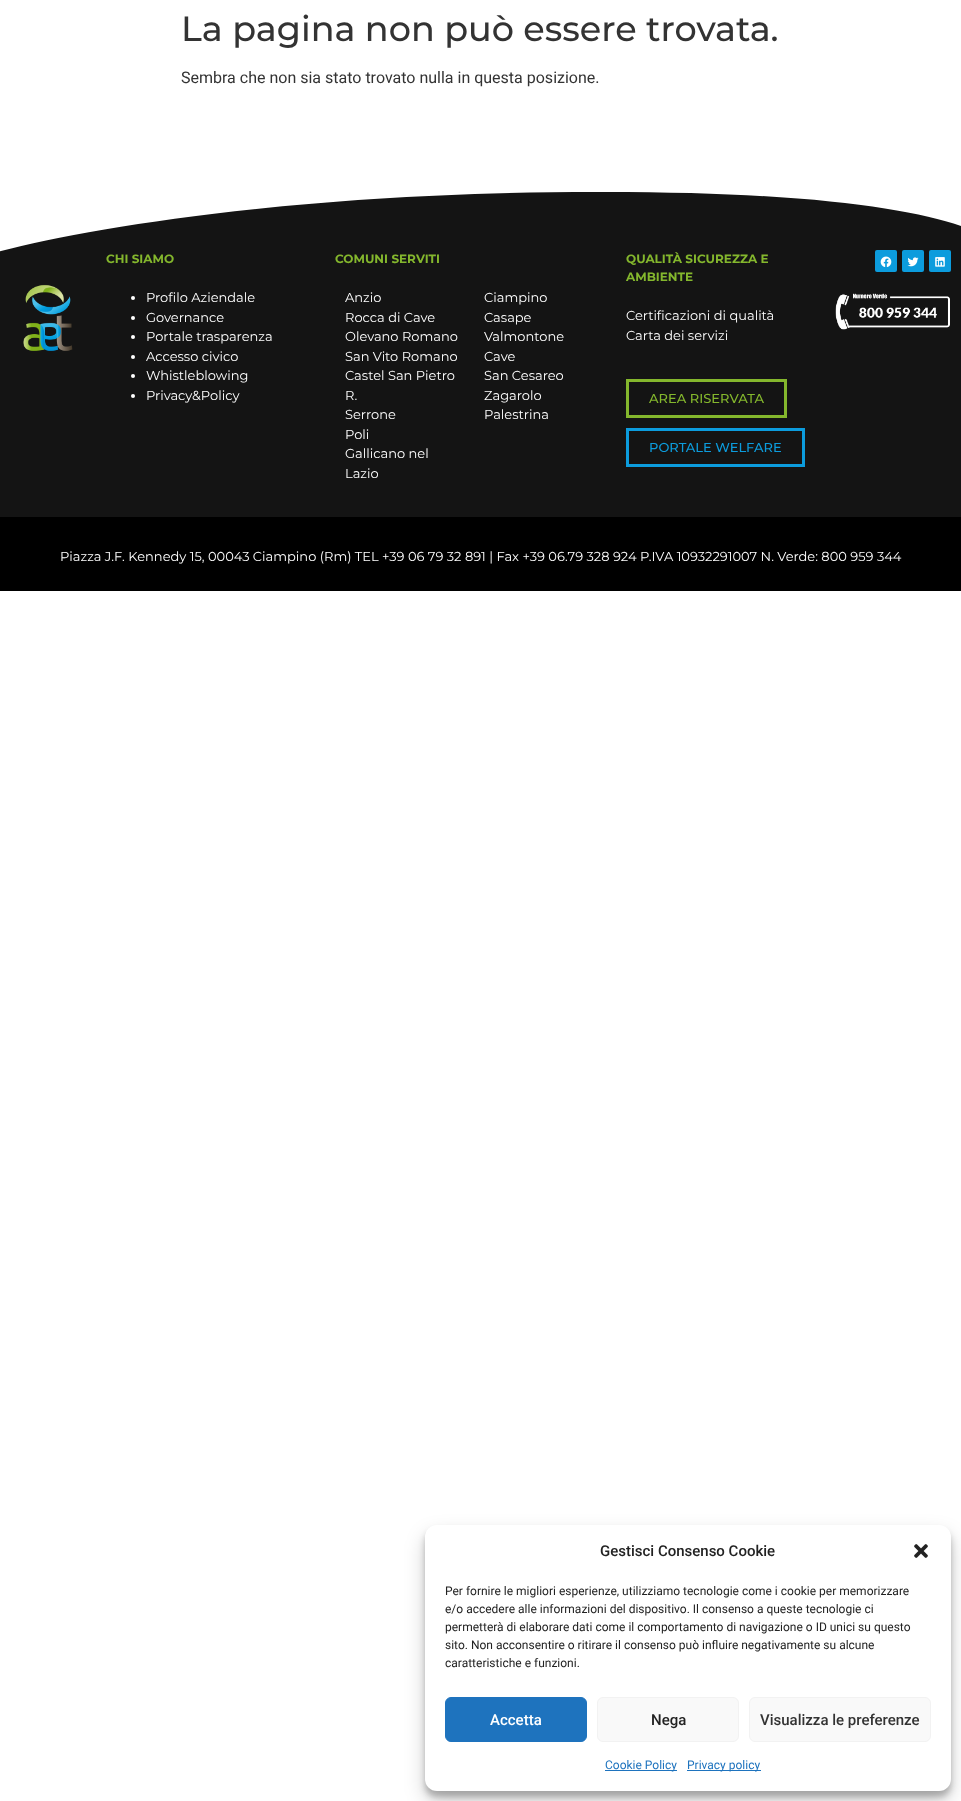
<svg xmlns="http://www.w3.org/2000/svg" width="961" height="1801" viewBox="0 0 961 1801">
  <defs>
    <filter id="blur1" x="-50%" y="-200%" width="200%" height="500%"><feGaussianBlur stdDeviation="3"/></filter>
    <filter id="blur2" x="-50%" y="-200%" width="200%" height="500%"><feGaussianBlur stdDeviation="10"/></filter>
  </defs>
  <rect width="100%" height="100%" fill="#ffffff"/>
  <text x="181" y="41" font-family="Montserrat" font-size="35" font-weight="500" fill="#333333">La pagina non può essere trovata.</text>
  <text x="181" y="83" font-family="Roboto" font-size="16" fill="#333333">Sembra che non sia stato trovato nulla in questa posizione.</text>
  <rect x="0" y="192" width="961" height="325" fill="#141414"/>
  <path d="M605 192C201 191-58 258-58 274V189H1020V274C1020 258 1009 192 605 192Z" fill="#ffffff"/>
  <image x="23" y="284" width="50" height="67" href="img1.png"/>
  <text x="106" y="263" font-family="Montserrat" font-size="12" font-weight="bold" fill="#84b72d">CHI SIAMO</text>
  <circle cx="133" cy="298" r="2" fill="#ffffff"/>
  <text x="146" y="302" font-family="Montserrat" font-size="13" fill="#ffffff">Profilo Aziendale</text>
  <circle cx="133" cy="318" r="2" fill="#ffffff"/>
  <text x="146" y="322" font-family="Montserrat" font-size="13" fill="#ffffff">Governance</text>
  <circle cx="133" cy="337" r="2" fill="#ffffff"/>
  <text x="146" y="341" font-family="Montserrat" font-size="13" fill="#ffffff">Portale trasparenza</text>
  <circle cx="133" cy="357" r="2" fill="#ffffff"/>
  <text x="146" y="361" font-family="Montserrat" font-size="13" fill="#ffffff">Accesso civico</text>
  <circle cx="133" cy="376" r="2" fill="#ffffff"/>
  <text x="146" y="380" font-family="Montserrat" font-size="13" fill="#ffffff">Whistleblowing</text>
  <circle cx="133" cy="396" r="2" fill="#ffffff"/>
  <text x="146" y="400" font-family="Montserrat" font-size="13" fill="#ffffff">Privacy&amp;Policy</text>
  <text x="335" y="263" font-family="Montserrat" font-size="12" font-weight="bold" fill="#84b72d">COMUNI SERVITI</text>
  <text x="345" y="302" font-family="Montserrat" font-size="13" fill="#ffffff">Anzio</text>
  <text x="345" y="322" font-family="Montserrat" font-size="13" fill="#ffffff">Rocca di Cave</text>
  <text x="345" y="341" font-family="Montserrat" font-size="13" fill="#ffffff">Olevano Romano</text>
  <text x="345" y="361" font-family="Montserrat" font-size="13" fill="#ffffff">San Vito Romano</text>
  <text x="345" y="380" font-family="Montserrat" font-size="13" fill="#ffffff">Castel San Pietro</text>
  <text x="345" y="400" font-family="Montserrat" font-size="13" fill="#ffffff">R.</text>
  <text x="345" y="419" font-family="Montserrat" font-size="13" fill="#ffffff">Serrone</text>
  <text x="345" y="439" font-family="Montserrat" font-size="13" fill="#ffffff">Poli</text>
  <text x="345" y="458" font-family="Montserrat" font-size="13" fill="#ffffff">Gallicano nel</text>
  <text x="345" y="478" font-family="Montserrat" font-size="13" fill="#ffffff">Lazio</text>
  <text x="484" y="302" font-family="Montserrat" font-size="13" fill="#ffffff">Ciampino</text>
  <text x="484" y="322" font-family="Montserrat" font-size="13" fill="#ffffff">Casape</text>
  <text x="484" y="341" font-family="Montserrat" font-size="13" fill="#ffffff">Valmontone</text>
  <text x="484" y="361" font-family="Montserrat" font-size="13" fill="#ffffff">Cave</text>
  <text x="484" y="380" font-family="Montserrat" font-size="13" fill="#ffffff">San Cesareo</text>
  <text x="484" y="400" font-family="Montserrat" font-size="13" fill="#ffffff">Zagarolo</text>
  <text x="484" y="419" font-family="Montserrat" font-size="13" fill="#ffffff">Palestrina</text>
  <text x="626" y="263" font-family="Montserrat" font-size="12" font-weight="bold" fill="#84b72d">QUALITÀ SICUREZZA E</text>
  <text x="626" y="281" font-family="Montserrat" font-size="12" font-weight="bold" fill="#84b72d">AMBIENTE</text>
  <text x="626" y="320" font-family="Montserrat" font-size="13" fill="#ffffff">Certificazioni di qualità</text>
  <text x="626" y="340" font-family="Montserrat" font-size="13" fill="#ffffff">Carta dei servizi</text>
  <rect x="627.5" y="380.5" width="158" height="36" fill="none" stroke="#84b72d" stroke-width="3"/>
  <text x="649" y="403" font-family="Montserrat" font-size="13" font-weight="500" fill="#84b72d">AREA RISERVATA</text>
  <rect x="627.5" y="429.5" width="176" height="36" fill="none" stroke="#0c9cdd" stroke-width="3"/>
  <text x="649" y="452" font-family="Montserrat" font-size="13" font-weight="500" fill="#0c9cdd">PORTALE WELFARE</text>
  <rect x="875" y="250" width="22" height="22" rx="2" fill="#0c9cdd"/>
  <image x="880" y="256" width="12" height="11" href="img2.png"/>
  <rect x="902" y="250" width="22" height="22" rx="2" fill="#0c9cdd"/>
  <image x="907" y="257" width="12" height="10" href="img3.png"/>
  <rect x="929" y="250" width="22" height="22" rx="2" fill="#0c9cdd"/>
  <image x="935" y="257" width="10" height="10" href="img4.png"/>
  <image x="835" y="293" width="115" height="37" href="img5.png"/>
  <rect x="0" y="517" width="961" height="74" fill="#000000"/>
  <text x="60" y="561" font-family="Montserrat" font-size="13" fill="#ffffff">Piazza J.F. Kennedy 15, 00043 Ciampino (Rm) TEL +39 06 79 32 891 | Fax +39 06.79 328 924 P.IVA 10932291007 N. Verde: 800 959 344</text>
  <rect x="425" y="1531" width="526" height="266" rx="12" fill="#000000" fill-opacity="0.23" filter="url(#blur1)"/>
  <rect x="425" y="1535" width="526" height="266" rx="12" fill="#000000" fill-opacity="0.19" filter="url(#blur2)"/>
  <rect x="425" y="1525" width="526" height="266" rx="12" fill="#ffffff"/>
  <text x="600" y="1556" font-family="Roboto" font-size="15" font-weight="500" fill="#222222">Gestisci Consenso Cookie</text>
  <image x="914" y="1544" width="14" height="14" href="img6.png"/>
  <text x="445" y="1595" font-family="Roboto" font-size="12" fill="#222222">Per fornire le migliori esperienze, utilizziamo tecnologie come i cookie per memorizzare</text>
  <text x="445" y="1613" font-family="Roboto" font-size="12" fill="#222222">e/o accedere alle informazioni del dispositivo. Il consenso a queste tecnologie ci</text>
  <text x="445" y="1631" font-family="Roboto" font-size="12" fill="#222222">permetterà di elaborare dati come il comportamento di navigazione o ID unici su questo</text>
  <text x="445" y="1649" font-family="Roboto" font-size="12" fill="#222222">sito. Non acconsentire o ritirare il consenso può influire negativamente su alcune</text>
  <text x="445" y="1667" font-family="Roboto" font-size="12" fill="#222222">caratteristiche e funzioni.</text>
  <rect x="445.5" y="1697.5" width="141" height="44" rx="5.5" fill="#1e73be" stroke="#1e73be"/>
  <text x="490" y="1725" font-family="Roboto" font-size="15" font-weight="500" fill="#ffffff">Accetta</text>
  <rect x="597.5" y="1697.5" width="141" height="44" rx="5.5" fill="#f9f9f9" stroke="#f2f2f2"/>
  <text x="651" y="1725" font-family="Roboto" font-size="15" font-weight="500" fill="#222222">Nega</text>
  <rect x="749.5" y="1697.5" width="181" height="44" rx="5.5" fill="#f9f9f9" stroke="#f2f2f2"/>
  <text x="760" y="1725" font-family="Roboto" font-size="15" font-weight="500" fill="#333333">Visualizza le preferenze</text>
  <rect x="605" y="1770" width="72" height="1" fill="#1e73be"/>
  <text x="605" y="1769" font-family="Roboto" font-size="12" fill="#1e73be">Cookie Policy</text>
  <rect x="687" y="1770" width="74" height="1" fill="#1e73be"/>
  <text x="687" y="1769" font-family="Roboto" font-size="12" fill="#1e73be">Privacy policy</text>
</svg>
